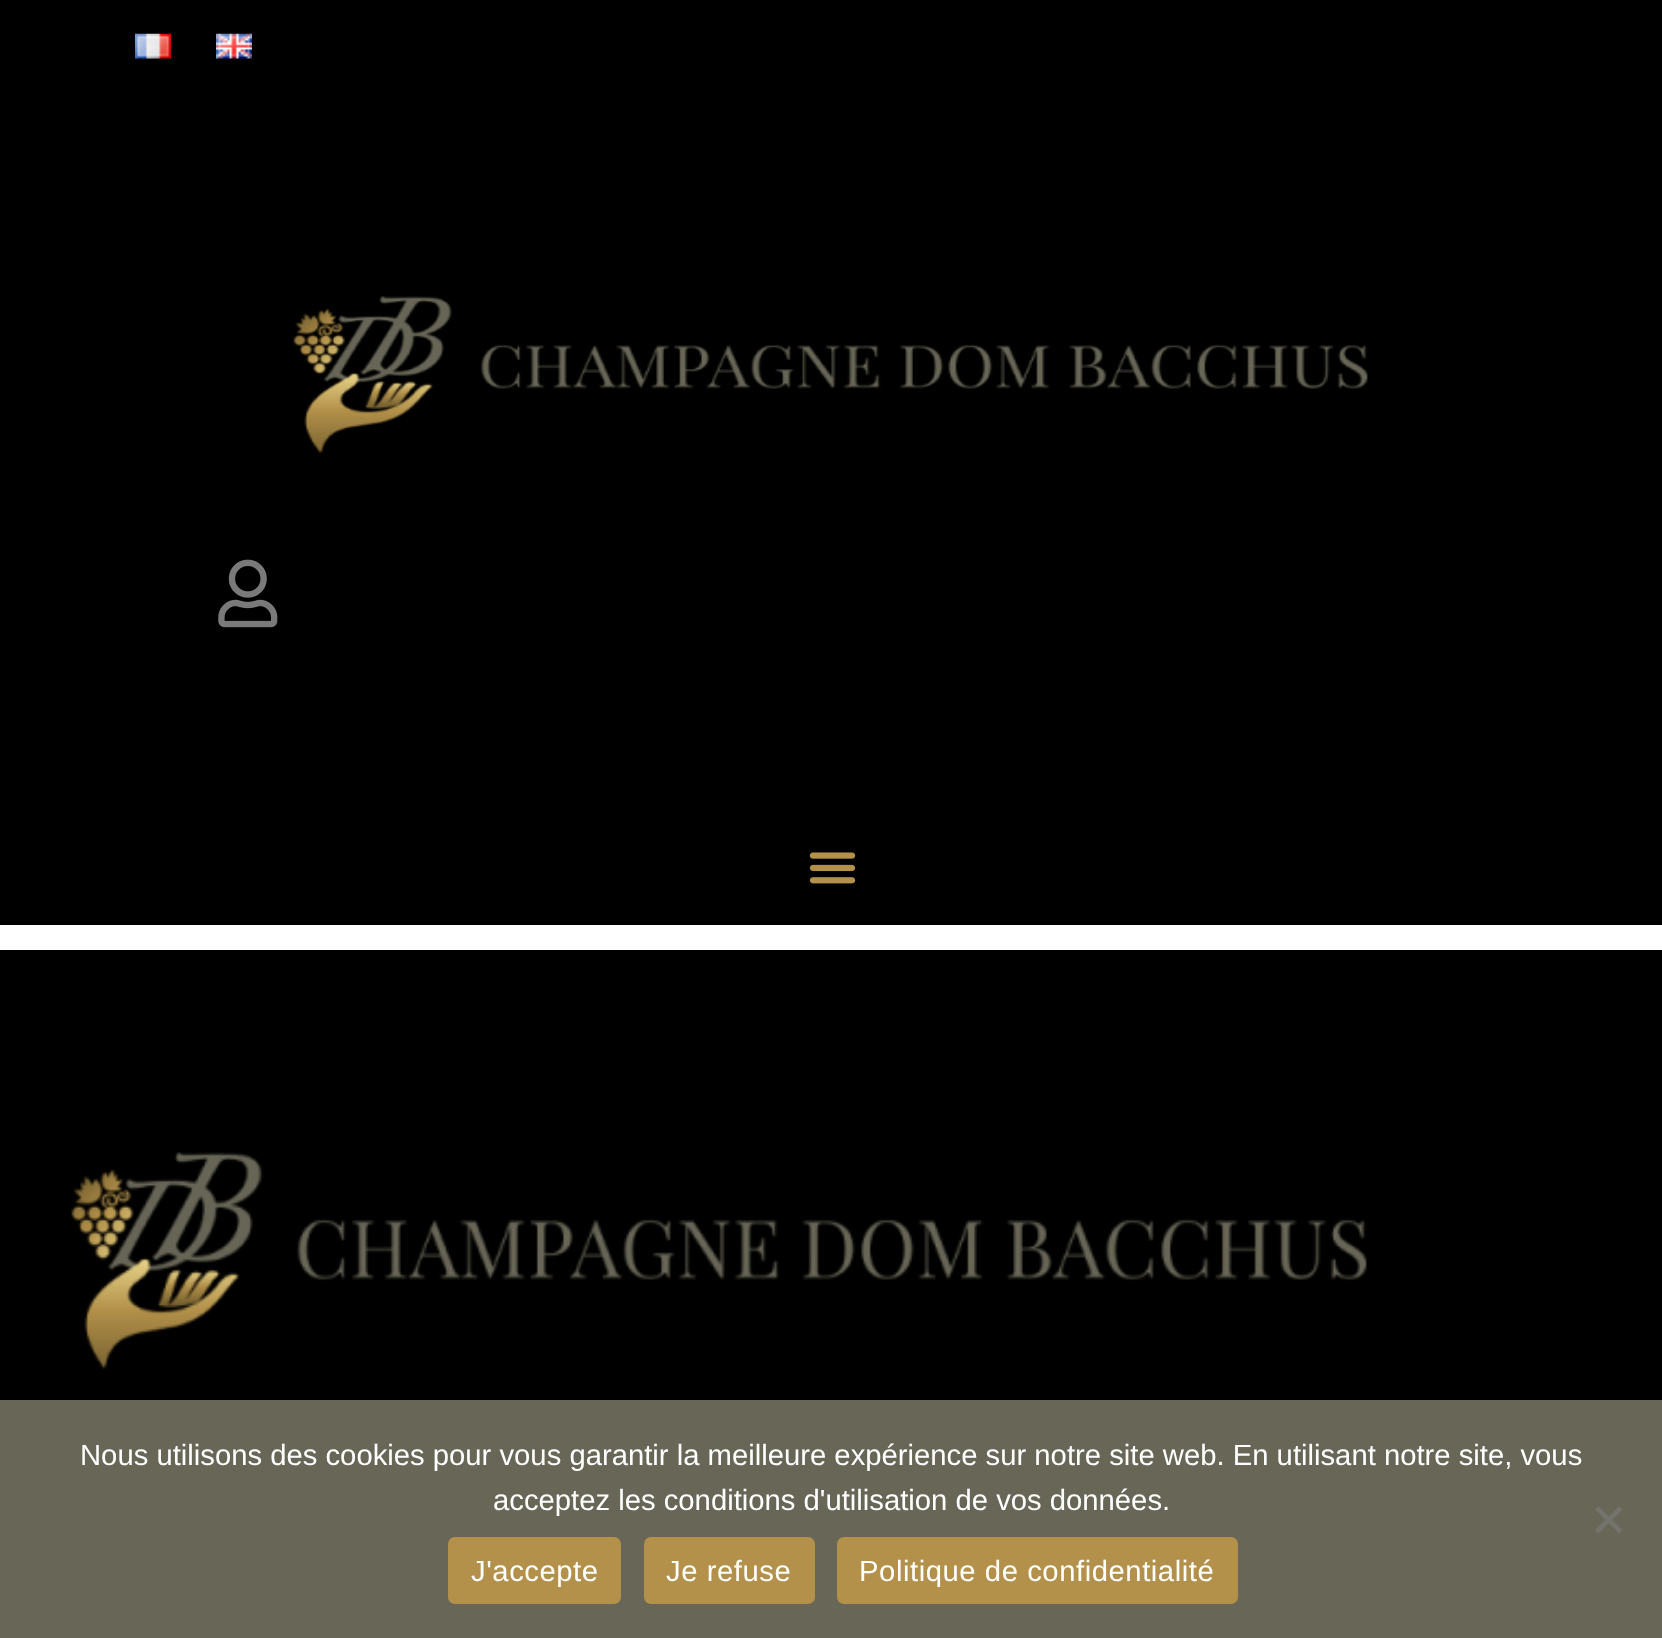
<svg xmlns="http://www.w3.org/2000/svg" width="1662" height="1638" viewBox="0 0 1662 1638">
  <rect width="100%" height="100%" fill="#ffffff"/>
  <rect x="0" y="0" width="1662" height="925" fill="#000000"/>
  <image x="135" y="33" width="36" height="26" href="img1.png"/>
  <image x="216" y="33" width="36" height="26" href="img2.png"/>
  <image x="293" y="296" width="1075" height="158" href="img3.png"/>
  <image x="218" y="559" width="60" height="69" href="img4.png"/>
  <image x="809" y="852" width="47" height="32" href="img5.png"/>
  <rect x="0" y="950" width="1662" height="450" fill="#000000"/>
  <image x="71" y="1152" width="1296" height="217" href="img6.png"/>
  <rect x="0" y="1400" width="1662" height="238" fill="#686657"/>
  <text x="80" y="1465" font-family="Liberation Sans" font-size="29.25" fill="#ffffff">Nous utilisons des cookies pour vous garantir la meilleure expérience sur notre site web. En utilisant notre site, vous</text>
  <text x="493" y="1510" font-family="Liberation Sans" font-size="29.25" fill="#ffffff">acceptez les conditions d'utilisation de vos données.</text>
  <path d="M1619 1506.5L1622.5 1509.5L1598.5 1533.5L1595 1530Z" fill="#74736c"/>
  <path d="M1595 1509.5L1598.5 1506.5L1622.5 1530L1619 1533.5Z" fill="#74736c"/>
  <rect x="448" y="1537" width="173" height="67" rx="7" fill="#b3914a"/>
  <text x="471" y="1581" font-family="Liberation Sans" font-size="29.25" letter-spacing="0.55" fill="#ffffff">J'accepte</text>
  <rect x="644" y="1537" width="171" height="67" rx="7" fill="#b3914a"/>
  <text x="666" y="1581" font-family="Liberation Sans" font-size="29.25" letter-spacing="0.55" fill="#ffffff">Je refuse</text>
  <rect x="837" y="1537" width="401" height="67" rx="7" fill="#b3914a"/>
  <text x="859" y="1581" font-family="Liberation Sans" font-size="29.25" letter-spacing="0.55" fill="#ffffff">Politique de confidentialité</text>
</svg>
